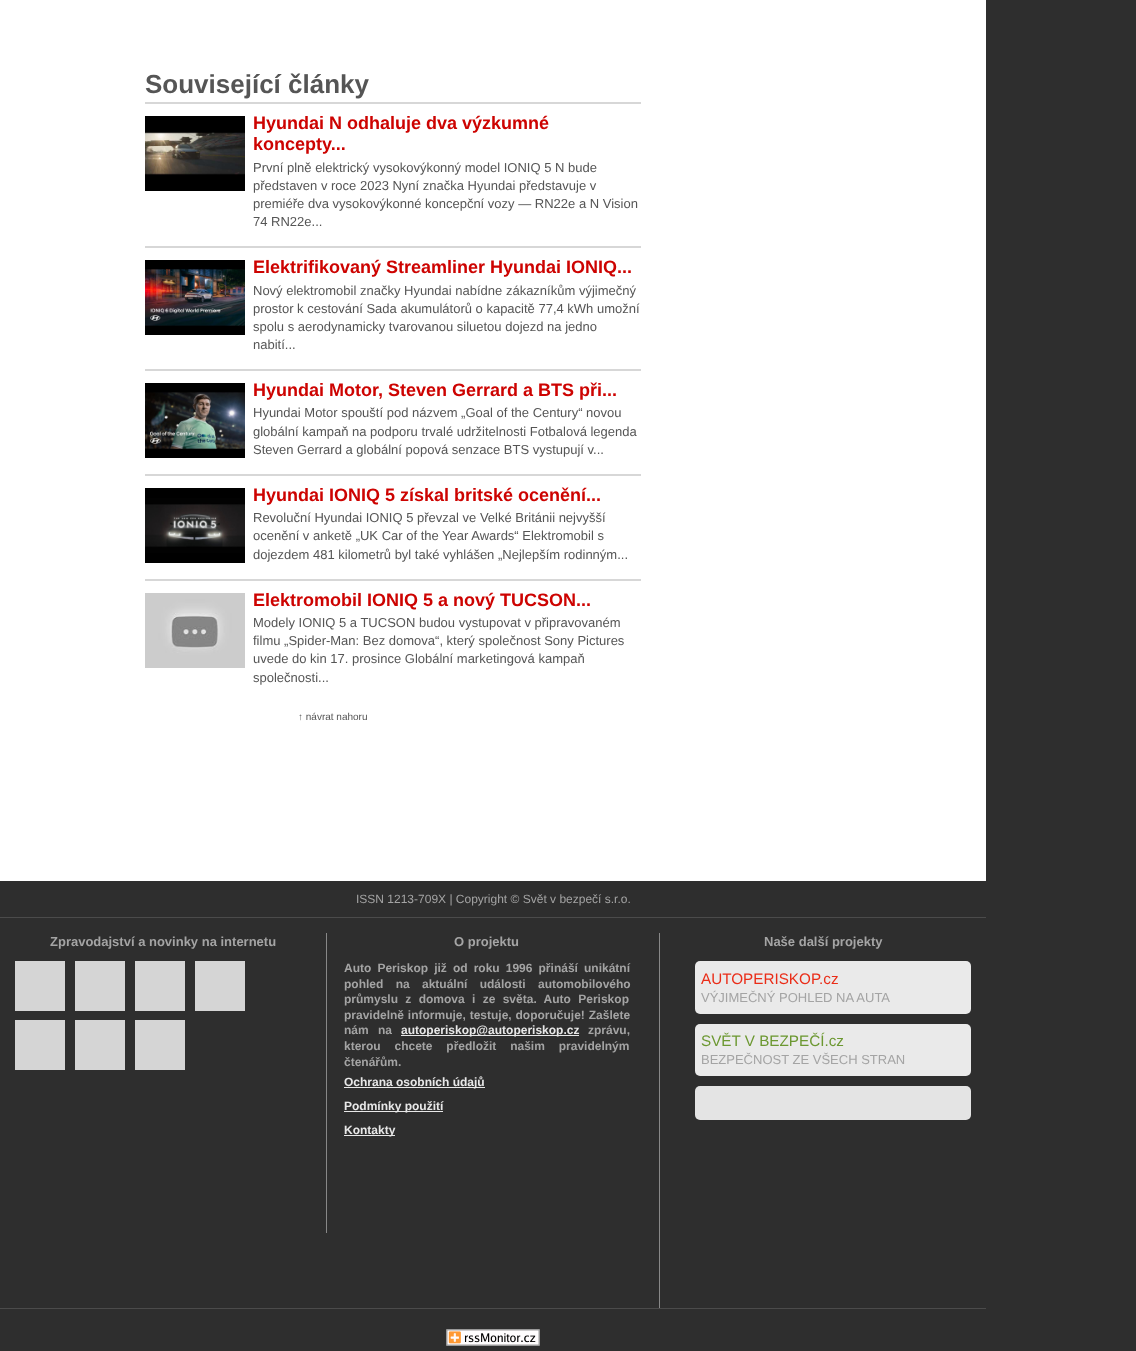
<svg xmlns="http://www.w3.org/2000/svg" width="1136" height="1351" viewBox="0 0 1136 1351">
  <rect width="100%" height="100%" fill="#2e2e2e"/>
  <rect x="0" y="0" width="986" height="881" fill="#ffffff"/>
  <text x="145" y="93" font-family="Liberation Sans" font-size="26" font-weight="bold" fill="#555555">Související články</text>
  <rect x="145" y="102" width="496" height="2" fill="#d7d7d7"/>
  <image x="145" y="116" width="100" height="75" href="img1.png"/>
  <text x="253" y="129" font-family="Liberation Sans" font-size="18" font-weight="bold" fill="#cd0301">Hyundai N odhaluje dva výzkumné</text>
  <text x="253" y="150" font-family="Liberation Sans" font-size="18" font-weight="bold" fill="#cd0301">koncepty...</text>
  <text x="253" y="172" font-family="Liberation Sans" font-size="13" fill="#555555">První plně elektrický vysokovýkonný model IONIQ 5 N bude</text>
  <text x="253" y="190" font-family="Liberation Sans" font-size="13" fill="#555555">představen v roce 2023 Nyní značka Hyundai představuje v</text>
  <text x="253" y="208" font-family="Liberation Sans" font-size="13" fill="#555555">premiéře dva vysokovýkonné koncepční vozy — RN22e a N Vision</text>
  <text x="253" y="226" font-family="Liberation Sans" font-size="13" fill="#555555">74 RN22e...</text>
  <rect x="145" y="246" width="496" height="2" fill="#d7d7d7"/>
  <image x="145" y="260" width="100" height="75" href="img2.png"/>
  <text x="253" y="273" font-family="Liberation Sans" font-size="18" font-weight="bold" fill="#cd0301">Elektrifikovaný Streamliner Hyundai IONIQ...</text>
  <text x="253" y="295" font-family="Liberation Sans" font-size="13" fill="#555555">Nový elektromobil značky Hyundai nabídne zákazníkům výjimečný</text>
  <text x="253" y="313" font-family="Liberation Sans" font-size="13" fill="#555555">prostor k cestování Sada akumulátorů o kapacitě 77,4 kWh umožní</text>
  <text x="253" y="331" font-family="Liberation Sans" font-size="13" fill="#555555">spolu s aerodynamicky tvarovanou siluetou dojezd na jedno</text>
  <text x="253" y="349" font-family="Liberation Sans" font-size="13" fill="#555555">nabití...</text>
  <rect x="145" y="369" width="496" height="2" fill="#d7d7d7"/>
  <image x="145" y="383" width="100" height="75" href="img3.png"/>
  <text x="253" y="396" font-family="Liberation Sans" font-size="18" font-weight="bold" fill="#cd0301">Hyundai Motor, Steven Gerrard a BTS při...</text>
  <text x="253" y="417" font-family="Liberation Sans" font-size="13" fill="#555555">Hyundai Motor spouští pod názvem „Goal of the Century“ novou</text>
  <text x="253" y="436" font-family="Liberation Sans" font-size="13" fill="#555555">globální kampaň na podporu trvalé udržitelnosti Fotbalová legenda</text>
  <text x="253" y="454" font-family="Liberation Sans" font-size="13" fill="#555555">Steven Gerrard a globální popová senzace BTS vystupují v...</text>
  <rect x="145" y="474" width="496" height="2" fill="#d7d7d7"/>
  <image x="145" y="488" width="100" height="75" href="img4.png"/>
  <text x="253" y="501" font-family="Liberation Sans" font-size="18" font-weight="bold" fill="#cd0301">Hyundai IONIQ 5 získal britské ocenění...</text>
  <text x="253" y="522" font-family="Liberation Sans" font-size="13" fill="#555555">Revoluční Hyundai IONIQ 5 převzal ve Velké Británii nejvyšší</text>
  <text x="253" y="540" font-family="Liberation Sans" font-size="13" fill="#555555">ocenění v anketě „UK Car of the Year Awards“ Elektromobil s</text>
  <text x="253" y="559" font-family="Liberation Sans" font-size="13" fill="#555555">dojezdem 481 kilometrů byl také vyhlášen „Nejlepším rodinným...</text>
  <rect x="145" y="579" width="496" height="2" fill="#d7d7d7"/>
  <image x="145" y="593" width="100" height="75" href="img5.png"/>
  <text x="253" y="606" font-family="Liberation Sans" font-size="18" font-weight="bold" fill="#cd0301">Elektromobil IONIQ 5 a nový TUCSON...</text>
  <text x="253" y="627" font-family="Liberation Sans" font-size="13" fill="#555555">Modely IONIQ 5 a TUCSON budou vystupovat v připravovaném</text>
  <text x="253" y="645" font-family="Liberation Sans" font-size="13" fill="#555555">filmu „Spider-Man: Bez domova“, který společnost Sony Pictures</text>
  <text x="253" y="663" font-family="Liberation Sans" font-size="13" fill="#555555">uvede do kin 17. prosince Globální marketingová kampaň</text>
  <text x="253" y="682" font-family="Liberation Sans" font-size="13" fill="#555555">společnosti...</text>
  <text x="298" y="720" font-family="Liberation Sans" font-size="10" fill="#555555">↑ návrat nahoru</text>
  <text x="356" y="903" font-family="Liberation Sans" font-size="12" fill="#a4a4a4">ISSN 1213-709X | Copyright © Svět v bezpečí s.r.o.</text>
  <rect x="0" y="917" width="986" height="1" fill="#4b4b4b"/>
  <rect x="0" y="1308" width="986" height="1" fill="#4b4b4b"/>
  <rect x="326" y="933" width="1" height="300" fill="#888888"/>
  <text x="50" y="946" font-family="Liberation Sans" font-size="13" font-weight="bold" fill="#a4a4a4">Zpravodajství a novinky na internetu</text>
  <rect x="15" y="961" width="50" height="50" fill="#d5d5d5"/>
  <rect x="75" y="961" width="50" height="50" fill="#d5d5d5"/>
  <rect x="135" y="961" width="50" height="50" fill="#d5d5d5"/>
  <rect x="195" y="961" width="50" height="50" fill="#d5d5d5"/>
  <rect x="15" y="1020" width="50" height="50" fill="#d5d5d5"/>
  <rect x="75" y="1020" width="50" height="50" fill="#d5d5d5"/>
  <rect x="135" y="1020" width="50" height="50" fill="#d5d5d5"/>
  <text x="454" y="946" font-family="Liberation Sans" font-size="13" font-weight="bold" fill="#a4a4a4">O projektu</text>
  <text x="344" y="972" word-spacing="2.75" font-family="Liberation Sans" font-size="12" font-weight="bold" fill="#a4a4a4">Auto Periskop již od roku 1996 přináší unikátní</text>
  <text x="344" y="988" word-spacing="9" font-family="Liberation Sans" font-size="12" font-weight="bold" fill="#a4a4a4">pohled na aktuální události automobilového</text>
  <text x="344" y="1003" word-spacing="4" font-family="Liberation Sans" font-size="12" font-weight="bold" fill="#a4a4a4">průmyslu z domova i ze světa. Auto Periskop</text>
  <text x="344" y="1019" word-spacing="0.5" font-family="Liberation Sans" font-size="12" font-weight="bold" fill="#a4a4a4">pravidelně informuje, testuje, doporučuje! Zašlete</text>
  <text x="344" y="1034" word-spacing="6" font-family="Liberation Sans" font-size="12" font-weight="bold" fill="#a4a4a4">nám na</text>
  <rect x="401" y="1035" width="178" height="1" fill="#e8e8e8"/>
  <text x="401" y="1034" font-family="Liberation Sans" font-size="12" font-weight="bold" fill="#e8e8e8">autoperiskop@autoperiskop.cz</text>
  <text x="588" y="1034" font-family="Liberation Sans" font-size="12" font-weight="bold" fill="#a4a4a4">zprávu,</text>
  <text x="344" y="1050" word-spacing="10.5" font-family="Liberation Sans" font-size="12" font-weight="bold" fill="#a4a4a4">kterou chcete předložit našim pravidelným</text>
  <text x="344" y="1066" font-family="Liberation Sans" font-size="12" font-weight="bold" fill="#a4a4a4">čtenářům.</text>
  <rect x="344" y="1087" width="141" height="1" fill="#e8e8e8"/>
  <text x="344" y="1086" font-family="Liberation Sans" font-size="12" font-weight="bold" fill="#e8e8e8">Ochrana osobních údajů</text>
  <rect x="344" y="1111" width="99" height="1" fill="#e8e8e8"/>
  <text x="344" y="1110" font-family="Liberation Sans" font-size="12" font-weight="bold" fill="#e8e8e8">Podmínky použití</text>
  <rect x="344" y="1135" width="51" height="1" fill="#e8e8e8"/>
  <text x="344" y="1134" font-family="Liberation Sans" font-size="12" font-weight="bold" fill="#e8e8e8">Kontakty</text>
  <rect x="659" y="933" width="1" height="375" fill="#888888"/>
  <text x="764" y="946" font-family="Liberation Sans" font-size="13" font-weight="bold" fill="#a4a4a4">Naše další projekty</text>
  <rect x="695" y="961" width="276" height="53" rx="5" fill="#eaeaea"/>
  <text x="701" y="984" font-family="Liberation Sans" font-size="15.25" fill="#ea2d18">AUTOPERISKOP.cz</text>
  <text x="701" y="1002" font-family="Liberation Sans" font-size="13" fill="#a4a4a4">VÝJIMEČNÝ POHLED NA AUTA</text>
  <rect x="695" y="1024" width="276" height="52" rx="5" fill="#eaeaea"/>
  <text x="701" y="1046" font-family="Liberation Sans" font-size="15.25" fill="#6c9831">SVĚT V BEZPEČÍ.cz</text>
  <text x="701" y="1064" font-family="Liberation Sans" font-size="13" fill="#a4a4a4">BEZPEČNOST ZE VŠECH STRAN</text>
  <rect x="695" y="1086" width="276" height="34" rx="5" fill="#e4e4e4"/>
  <image x="446" y="1329" width="94" height="17" href="img6.png"/>
</svg>
